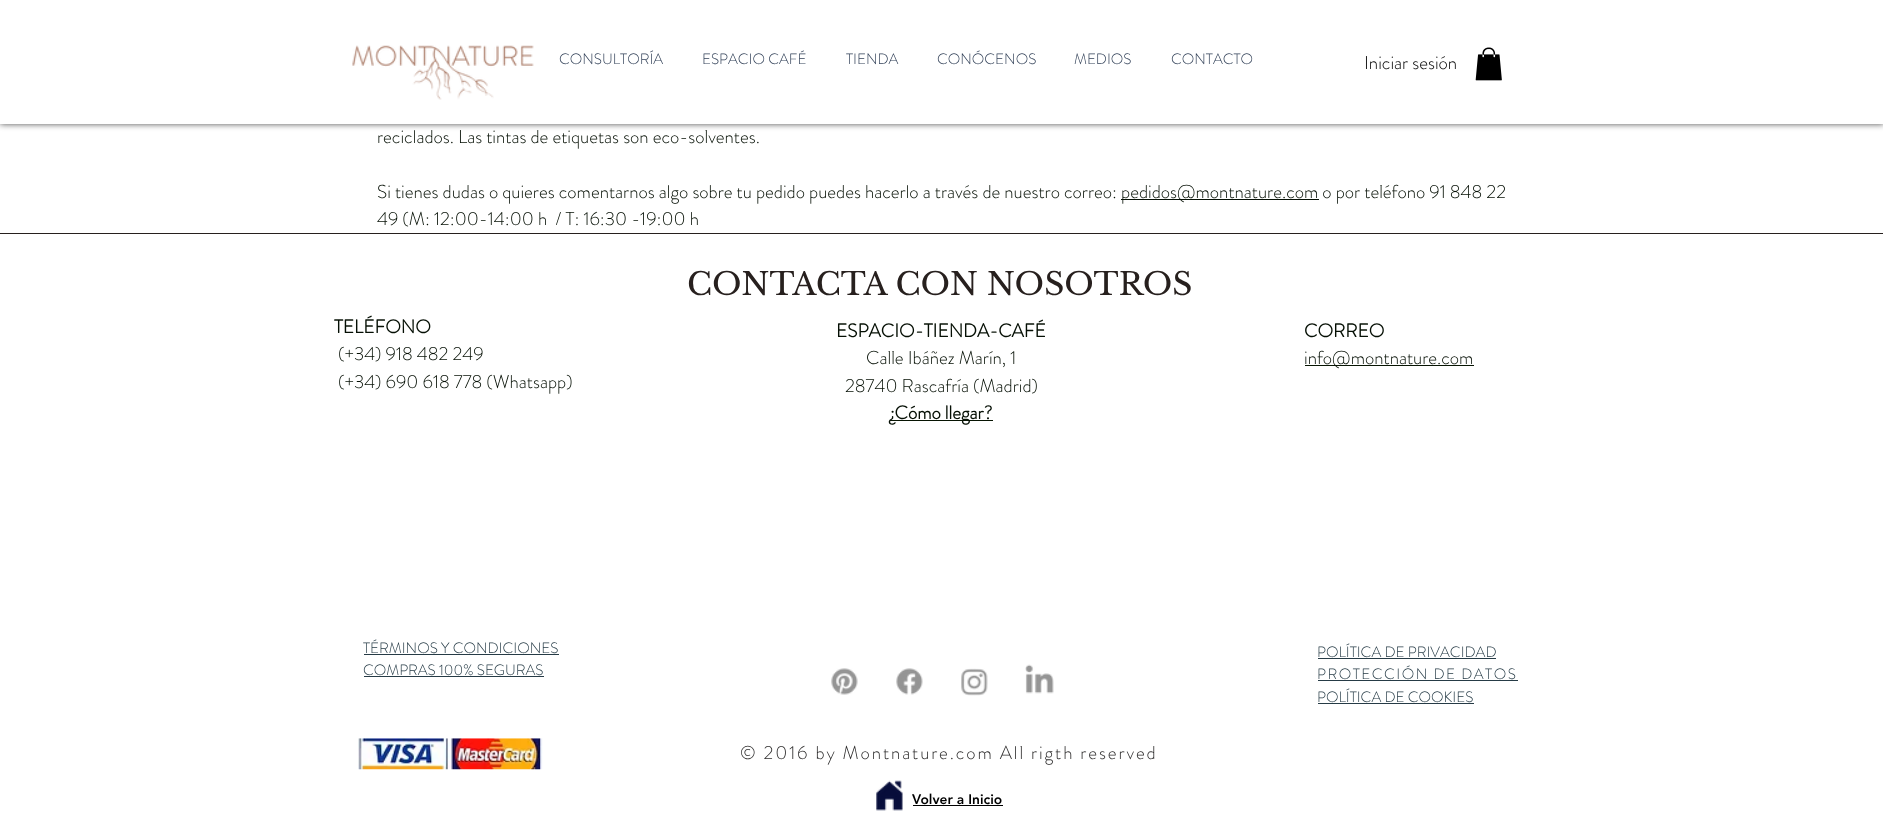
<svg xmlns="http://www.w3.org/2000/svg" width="1883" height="834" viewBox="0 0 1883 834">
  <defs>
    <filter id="blur1" x="-50%" y="-200%" width="200%" height="500%"><feGaussianBlur stdDeviation="3"/></filter>
  </defs>
  <rect width="100%" height="100%" fill="#ffffff"/>
  <rect x="0" y="0" width="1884" height="124" fill="#000000" fill-opacity="0.7" filter="url(#blur1)"/>
  <rect x="0" y="0" width="1883" height="124" fill="#ffffff"/>
  <image x="352" y="45" width="182" height="55" href="img1.png"/>
  <text x="559" y="64" font-family="'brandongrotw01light'" font-size="15" font-weight="300" fill="#324158">CONSULTORÍA</text>
  <text x="702" y="64" font-family="'brandongrotw01light'" font-size="15" font-weight="300" fill="#324158">ESPACIO CAFÉ</text>
  <text x="846" y="64" font-family="'brandongrotw01light'" font-size="15" font-weight="300" fill="#324158">TIENDA</text>
  <text x="937" y="64" font-family="'brandongrotw01light'" font-size="15" font-weight="300" fill="#324158">CONÓCENOS</text>
  <text x="1074" y="64" font-family="'brandongrotw01light'" font-size="15" font-weight="300" fill="#324158">MEDIOS</text>
  <text x="1171" y="64" font-family="'brandongrotw01light'" font-size="15" font-weight="300" fill="#324158">CONTACTO</text>
  <text x="1364" y="69" font-family="'brandongrotw01light'" font-size="18.75" font-weight="300" fill="#000000">Iniciar sesión</text>
  <image x="1475" y="47" width="27" height="34" href="img2.png"/>
  <text x="377" y="143" font-family="'brandongrotw01light'" font-size="18.75" font-weight="300" fill="#050f04">reciclados. Las tintas de etiquetas son eco-solventes.</text>
  <text x="377" y="198" font-family="'brandongrotw01light'" font-size="18.75" font-weight="300" fill="#050f04">Si tienes dudas o quieres comentarnos algo sobre tu pedido puedes hacerlo a través de nuestro correo:</text>
  <rect x="1121" y="199" width="198" height="1" fill="#050f04"/>
  <text x="1121" y="198" font-family="'brandongrotw01light'" font-size="18.75" font-weight="300" fill="#050f04">pedidos@montnature.com o por teléfono 91 848 22</text>
  <text x="377" y="225" font-family="'brandongrotw01light'" font-size="18.75" font-weight="300" fill="#050f04" xml:space="preserve">49 (M: 12:00-14:00 h  / T: 16:30 -19:00 h</text>
  <rect x="0" y="233" width="1883" height="1" fill="#27201e"/>
  <text x="687" y="295" font-family="Libre Baskerville" font-size="31.25" fill="#27201e">CONTACTA CON NOSOTROS</text>
  <text x="334" y="333" font-family="'brandongrotw01light'" font-size="18.75" font-weight="bold" fill="#050f04">TELÉFONO</text>
  <text x="338" y="360" font-family="'brandongrotw01light'" font-size="18.75" font-weight="300" fill="#050f04">(+34) 918 482 249</text>
  <text x="338" y="388" font-family="'brandongrotw01light'" font-size="18.75" font-weight="300" fill="#050f04">(+34) 690 618 778 (Whatsapp)</text>
  <text x="836" y="337" font-family="'brandongrotw01light'" font-size="18.75" font-weight="bold" fill="#050f04">ESPACIO-TIENDA-CAFÉ</text>
  <text x="866" y="364" font-family="'brandongrotw01light'" font-size="18.75" font-weight="300" fill="#050f04">Calle Ibáñez Marín, 1</text>
  <text x="845" y="392" font-family="'brandongrotw01light'" font-size="18.75" font-weight="300" fill="#050f04">28740 Rascafría (Madrid)</text>
  <rect x="890" y="420" width="103" height="1" fill="#071402"/>
  <text x="890" y="419" font-family="'brandongrotw01light'" font-size="18.75" font-weight="bold" fill="#050f04">¿Cómo llegar?</text>
  <text x="1304" y="337" font-family="'brandongrotw01light'" font-size="18.75" font-weight="bold" fill="#050f04">CORREO</text>
  <rect x="1305" y="365" width="169" height="1" fill="#071402"/>
  <text x="1304" y="364" font-family="'brandongrotw01light'" font-size="18.75" font-weight="300" fill="#050f04">info@montnature.com</text>
  <text x="363" y="653" font-family="'brandongrotw01light'" font-size="15" font-weight="300" fill="#263b46">TÉRMINOS Y CONDICIONES</text>
  <rect x="364" y="654" width="195" height="1" fill="#263b46"/>
  <text x="363" y="675" font-family="'brandongrotw01light'" font-size="15" font-weight="300" fill="#263b46">COMPRAS 100% SEGURAS</text>
  <rect x="364" y="676" width="180" height="1" fill="#263b46"/>
  <text x="1317" y="657" font-family="'brandongrotw01light'" font-size="15" font-weight="300" fill="#263b46">POLÍTICA DE PRIVACIDAD</text>
  <rect x="1318" y="658" width="178" height="1" fill="#263b46"/>
  <text x="1317" y="679" font-family="'brandongrotw01light'" font-size="15" font-weight="300" letter-spacing="1.5" fill="#263b46">PROTECCIÓN DE DATOS</text>
  <rect x="1318" y="680" width="200" height="1" fill="#263b46"/>
  <text x="1317" y="702" font-family="'brandongrotw01light'" font-size="15" font-weight="300" fill="#263b46">POLÍTICA DE COOKIES</text>
  <rect x="1318" y="703" width="156" height="1" fill="#263b46"/>
  <image x="358" y="738" width="185" height="32" href="img3.png"/>
  <text x="740" y="759" font-family="'brandongrotw01light'" font-size="18.75" font-weight="300" letter-spacing="1.9" fill="#2f2e2e">© 2016 by Montnature.com All rigth reserved</text>
  <image x="876" y="780" width="27" height="31" href="img4.png"/>
  <text x="912" y="804" font-family="'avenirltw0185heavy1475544'" font-size="13.75" font-weight="900" fill="#000000">Volver a Inicio</text>
  <rect x="913" y="805" width="90" height="1" fill="#000000"/>
  <image x="831" y="668" width="27" height="27" href="img5.png"/>
  <image x="896" y="668" width="27" height="27" href="img6.png"/>
  <image x="961" y="668" width="27" height="28" href="img7.png"/>
  <image x="1025" y="664" width="29" height="30" href="img8.png"/>
</svg>
